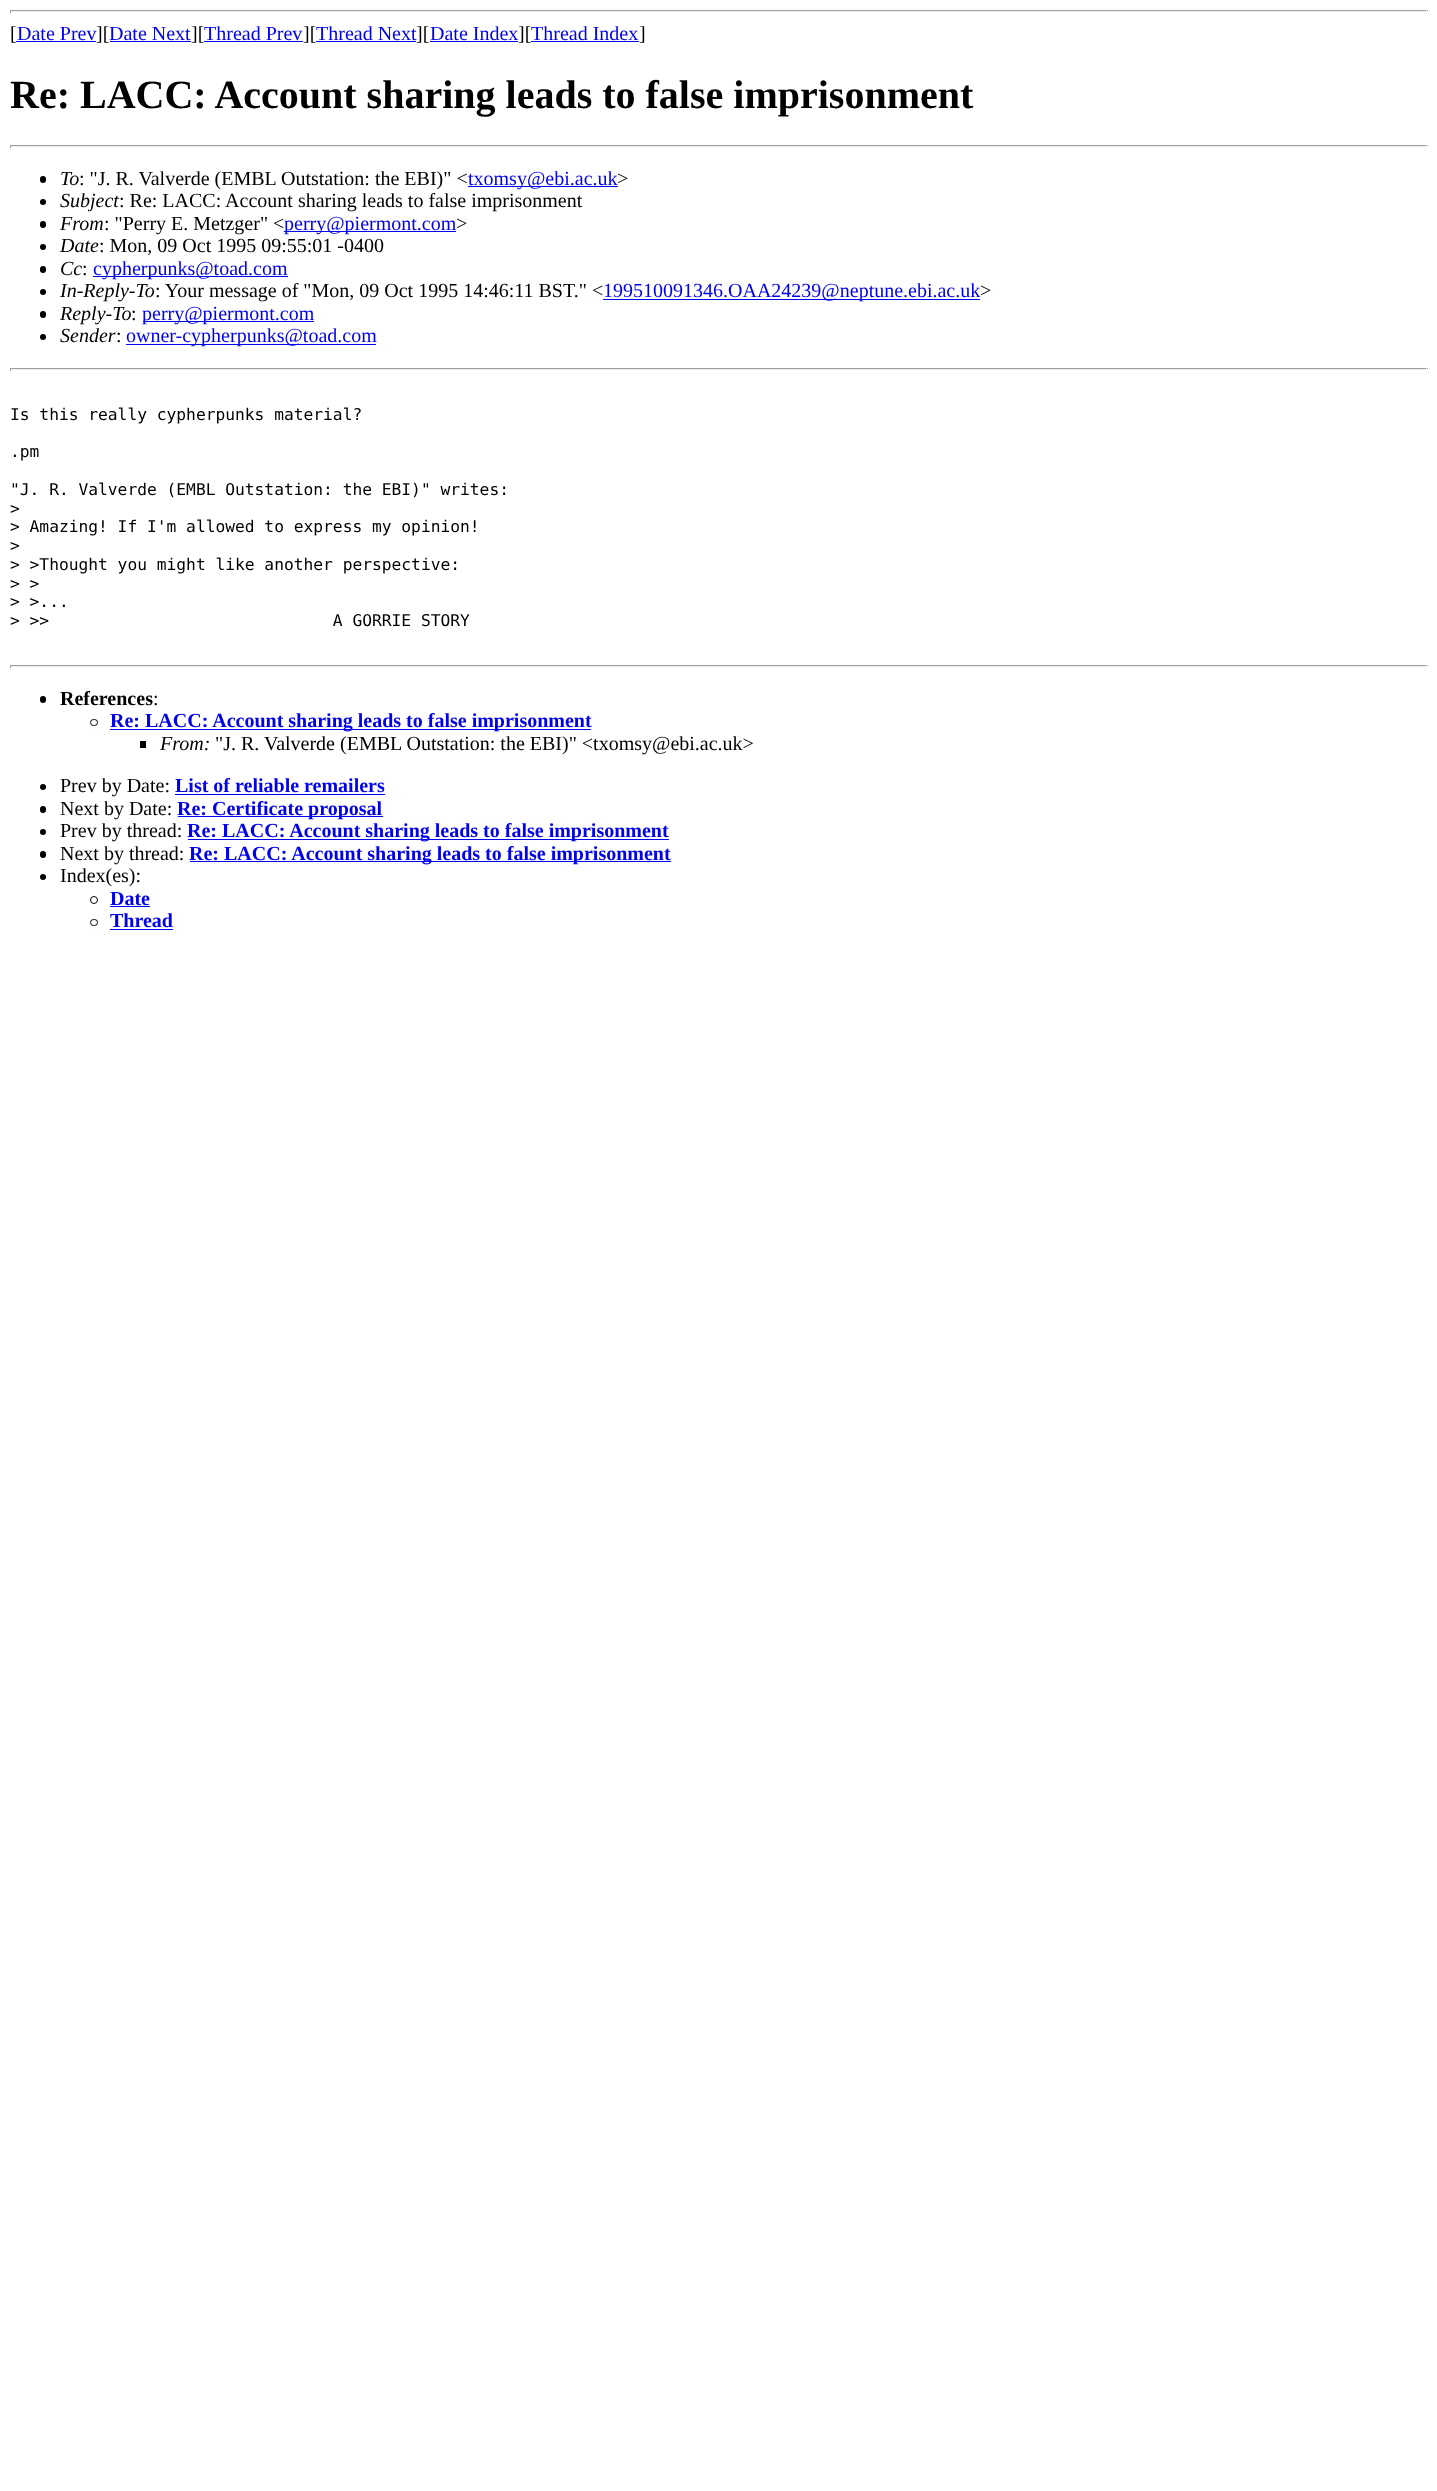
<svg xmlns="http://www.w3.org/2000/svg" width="1437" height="2491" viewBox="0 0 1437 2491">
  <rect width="100%" height="100%" fill="#ffffff"/>
  <rect x="10" y="10" width="1418" height="1" fill="#9f9f9f"/>
  <rect x="1426" y="10" width="1" height="3" fill="#eeeeee"/>
  <rect x="10" y="11" width="1418" height="1" fill="#eeeeee"/>
  <rect x="10" y="10" width="1" height="3" fill="#9f9f9f"/>
  <text x="10" y="40" font-family="Liberation Serif" font-size="20" fill="#000000">[</text>
  <text x="17" y="40" font-family="Liberation Serif" font-size="20" fill="#0000ee">Date Prev</text>
  <rect x="16" y="41" width="80" height="1" fill="#0000ee"/>
  <text x="96" y="40" font-family="Liberation Serif" font-size="20" fill="#000000">][</text>
  <text x="109" y="40" font-family="Liberation Serif" font-size="20" fill="#0000ee">Date Next</text>
  <rect x="110" y="41" width="81" height="1" fill="#0000ee"/>
  <text x="191" y="40" font-family="Liberation Serif" font-size="20" fill="#000000">][</text>
  <text x="204" y="40" font-family="Liberation Serif" font-size="20" fill="#0000ee">Thread Prev</text>
  <rect x="204" y="41" width="99" height="1" fill="#0000ee"/>
  <text x="303" y="40" font-family="Liberation Serif" font-size="20" fill="#000000">][</text>
  <text x="316" y="40" font-family="Liberation Serif" font-size="20" fill="#0000ee">Thread Next</text>
  <rect x="316" y="41" width="100" height="1" fill="#0000ee"/>
  <text x="416" y="40" font-family="Liberation Serif" font-size="20" fill="#000000">][</text>
  <text x="430" y="40" font-family="Liberation Serif" font-size="20" fill="#0000ee">Date Index</text>
  <rect x="430" y="41" width="88" height="1" fill="#0000ee"/>
  <text x="518" y="40" font-family="Liberation Serif" font-size="20" fill="#000000">][</text>
  <text x="531" y="40" font-family="Liberation Serif" font-size="20" fill="#0000ee">Thread Index</text>
  <rect x="531" y="41" width="108" height="1" fill="#0000ee"/>
  <text x="639" y="40" font-family="Liberation Serif" font-size="20" fill="#000000">]</text>
  <text x="10" y="108" font-family="Liberation Serif" font-size="40" font-weight="bold" fill="#000000">Re: LACC: Account sharing leads to false imprisonment</text>
  <rect x="10" y="145" width="1418" height="1" fill="#9f9f9f"/>
  <rect x="1426" y="145" width="1" height="3" fill="#eeeeee"/>
  <rect x="10" y="146" width="1418" height="1" fill="#eeeeee"/>
  <rect x="10" y="145" width="1" height="3" fill="#9f9f9f"/>
  <rect x="40" y="176" width="6" height="7" rx="3" fill="#000000"/>
  <text x="60" y="185" font-family="Liberation Serif" font-size="20" font-style="italic" fill="#000000">To</text>
  <text x="79" y="185" font-family="Liberation Serif" font-size="20" fill="#000000">: "J. R. Valverde (EMBL Outstation: the EBI)" &lt;</text>
  <rect x="468" y="186" width="150" height="1" fill="#0000ee"/>
  <text x="468" y="185" font-family="Liberation Serif" font-size="20" fill="#0000ee">txomsy@ebi.ac.uk</text>
  <text x="617" y="185" font-family="Liberation Serif" font-size="20" fill="#000000">&gt;</text>
  <circle cx="43" cy="202" r="3" fill="#000000"/>
  <text x="60" y="207" font-family="Liberation Serif" font-size="20" font-style="italic" fill="#000000">Subject</text>
  <text x="119" y="207" font-family="Liberation Serif" font-size="20" fill="#000000">: Re: LACC: Account sharing leads to false imprisonment</text>
  <rect x="40" y="221" width="6" height="7" rx="3" fill="#000000"/>
  <text x="60" y="230" font-family="Liberation Serif" font-size="20" font-style="italic" fill="#000000">From</text>
  <text x="104" y="230" font-family="Liberation Serif" font-size="20" fill="#000000">: "Perry E. Metzger" &lt;</text>
  <rect x="284" y="231" width="172" height="1" fill="#0000ee"/>
  <text x="284" y="230" font-family="Liberation Serif" font-size="20" fill="#0000ee">perry@piermont.com</text>
  <text x="456" y="230" font-family="Liberation Serif" font-size="20" fill="#000000">&gt;</text>
  <circle cx="43" cy="247" r="3" fill="#000000"/>
  <text x="60" y="252" font-family="Liberation Serif" font-size="20" font-style="italic" fill="#000000">Date</text>
  <text x="99" y="252" font-family="Liberation Serif" font-size="20" fill="#000000">: Mon, 09 Oct 1995 09:55:01 -0400</text>
  <rect x="40" y="266" width="6" height="7" rx="3" fill="#000000"/>
  <text x="60" y="275" font-family="Liberation Serif" font-size="20" font-style="italic" fill="#000000">Cc</text>
  <text x="82" y="275" font-family="Liberation Serif" font-size="20" fill="#000000">:</text>
  <rect x="93" y="276" width="195" height="1" fill="#0000ee"/>
  <text x="93" y="275" font-family="Liberation Serif" font-size="20" fill="#0000ee">cypherpunks@toad.com</text>
  <circle cx="43" cy="292" r="3" fill="#000000"/>
  <text x="60" y="297" font-family="Liberation Serif" font-size="20" font-style="italic" fill="#000000">In-Reply-To</text>
  <text x="155" y="297" font-family="Liberation Serif" font-size="20" fill="#000000">: Your message of "Mon, 09 Oct 1995 14:46:11 BST." &lt;</text>
  <rect x="603" y="299" width="377" height="1" fill="#0000ee"/>
  <text x="603" y="297" font-family="Liberation Serif" font-size="20" fill="#0000ee">199510091346.OAA24239@neptune.ebi.ac.uk</text>
  <text x="980" y="297" font-family="Liberation Serif" font-size="20" fill="#000000">&gt;</text>
  <rect x="40" y="311" width="6" height="7" rx="3" fill="#000000"/>
  <text x="60" y="320" font-family="Liberation Serif" font-size="20" font-style="italic" fill="#000000">Reply-To</text>
  <text x="131" y="320" font-family="Liberation Serif" font-size="20" fill="#000000">:</text>
  <rect x="143" y="321" width="171" height="1" fill="#0000ee"/>
  <text x="142" y="320" font-family="Liberation Serif" font-size="20" fill="#0000ee">perry@piermont.com</text>
  <circle cx="43" cy="337" r="3" fill="#000000"/>
  <text x="60" y="342" font-family="Liberation Serif" font-size="20" font-style="italic" fill="#000000">Sender</text>
  <text x="116" y="342" font-family="Liberation Serif" font-size="20" fill="#000000">:</text>
  <rect x="126" y="344" width="250" height="1" fill="#0000ee"/>
  <text x="126" y="342" font-family="Liberation Serif" font-size="20" fill="#0000ee">owner-cypherpunks@toad.com</text>
  <rect x="10" y="368" width="1418" height="1" fill="#9f9f9f"/>
  <rect x="1426" y="368" width="1" height="3" fill="#eeeeee"/>
  <rect x="10" y="369" width="1418" height="1" fill="#eeeeee"/>
  <rect x="10" y="368" width="1" height="3" fill="#9f9f9f"/>
  <text x="10" y="420" font-family="DejaVu Sans Mono" font-size="16.25" fill="#000000">Is this really cypherpunks material?</text>
  <text x="10" y="457" font-family="DejaVu Sans Mono" font-size="16.25" fill="#000000">.pm</text>
  <text x="10" y="495" font-family="DejaVu Sans Mono" font-size="16.25" fill="#000000">"J. R. Valverde (EMBL Outstation: the EBI)" writes:</text>
  <text x="10" y="514" font-family="DejaVu Sans Mono" font-size="16.25" fill="#000000">&gt;</text>
  <text x="10" y="532" font-family="DejaVu Sans Mono" font-size="16.25" fill="#000000">&gt; Amazing! If I'm allowed to express my opinion!</text>
  <text x="10" y="551" font-family="DejaVu Sans Mono" font-size="16.25" fill="#000000">&gt;</text>
  <text x="10" y="570" font-family="DejaVu Sans Mono" font-size="16.25" fill="#000000">&gt; &gt;Thought you might like another perspective:</text>
  <text x="10" y="589" font-family="DejaVu Sans Mono" font-size="16.25" fill="#000000">&gt; &gt;</text>
  <text x="10" y="607" font-family="DejaVu Sans Mono" font-size="16.25" fill="#000000">&gt; &gt;...</text>
  <text x="10" y="626" font-family="DejaVu Sans Mono" font-size="16.25" fill="#000000" xml:space="preserve">&gt; &gt;&gt;                             A GORRIE STORY</text>
  <rect x="10" y="665" width="1418" height="1" fill="#9f9f9f"/>
  <rect x="1426" y="665" width="1" height="3" fill="#eeeeee"/>
  <rect x="10" y="666" width="1418" height="1" fill="#eeeeee"/>
  <rect x="10" y="665" width="1" height="3" fill="#9f9f9f"/>
  <rect x="40" y="696" width="6" height="7" rx="3" fill="#000000"/>
  <text x="60" y="705" font-family="Liberation Serif" font-size="20" font-weight="bold" fill="#000000">References</text>
  <text x="153" y="705" font-family="Liberation Serif" font-size="20" fill="#000000">:</text>
  <rect x="90.5" y="719.5" width="7" height="6" rx="3" fill="none" stroke="#000000"/>
  <rect x="110" y="729" width="481" height="1" fill="#0000ee"/>
  <text x="110" y="727" font-family="Liberation Serif" font-size="20" font-weight="bold" fill="#0000ee">Re: LACC: Account sharing leads to false imprisonment</text>
  <rect x="140" y="741" width="6" height="7" fill="#000000"/>
  <text x="160" y="750" font-family="Liberation Serif" font-size="20" font-style="italic" fill="#000000">From:</text>
  <text x="215" y="750" font-family="Liberation Serif" font-size="20" fill="#000000">"J. R. Valverde (EMBL Outstation: the EBI)" &lt;txomsy@ebi.ac.uk&gt;</text>
  <circle cx="43" cy="787" r="3" fill="#000000"/>
  <text x="60" y="792" font-family="Liberation Serif" font-size="20" fill="#000000">Prev by Date:</text>
  <text x="175" y="792" font-family="Liberation Serif" font-size="20" font-weight="bold" fill="#0000ee">List of reliable remailers</text>
  <rect x="175" y="794" width="210" height="1" fill="#0000ee"/>
  <rect x="40" y="806" width="6" height="7" rx="3" fill="#000000"/>
  <text x="60" y="815" font-family="Liberation Serif" font-size="20" fill="#000000">Next by Date:</text>
  <rect x="178" y="816" width="205" height="1" fill="#0000ee"/>
  <text x="177" y="815" font-family="Liberation Serif" font-size="20" font-weight="bold" fill="#0000ee">Re: Certificate proposal</text>
  <circle cx="43" cy="832" r="3" fill="#000000"/>
  <text x="60" y="837" font-family="Liberation Serif" font-size="20" fill="#000000">Prev by thread:</text>
  <rect x="188" y="839" width="481" height="1" fill="#0000ee"/>
  <text x="187" y="837" font-family="Liberation Serif" font-size="20" font-weight="bold" fill="#0000ee">Re: LACC: Account sharing leads to false imprisonment</text>
  <rect x="40" y="851" width="6" height="7" rx="3" fill="#000000"/>
  <text x="60" y="860" font-family="Liberation Serif" font-size="20" fill="#000000">Next by thread:</text>
  <rect x="190" y="861" width="481" height="1" fill="#0000ee"/>
  <text x="189" y="860" font-family="Liberation Serif" font-size="20" font-weight="bold" fill="#0000ee">Re: LACC: Account sharing leads to false imprisonment</text>
  <circle cx="43" cy="877" r="3" fill="#000000"/>
  <text x="60" y="882" font-family="Liberation Serif" font-size="20" fill="#000000">Index(es):</text>
  <circle cx="94" cy="900" r="3.5" fill="none" stroke="#000000"/>
  <text x="110" y="905" font-family="Liberation Serif" font-size="20" font-weight="bold" fill="#0000ee">Date</text>
  <rect x="110" y="906" width="40" height="1" fill="#0000ee"/>
  <rect x="90.5" y="919.5" width="7" height="6" rx="3" fill="none" stroke="#000000"/>
  <text x="110" y="927" font-family="Liberation Serif" font-size="20" font-weight="bold" fill="#0000ee">Thread</text>
  <rect x="110" y="929" width="63" height="1" fill="#0000ee"/>
</svg>
